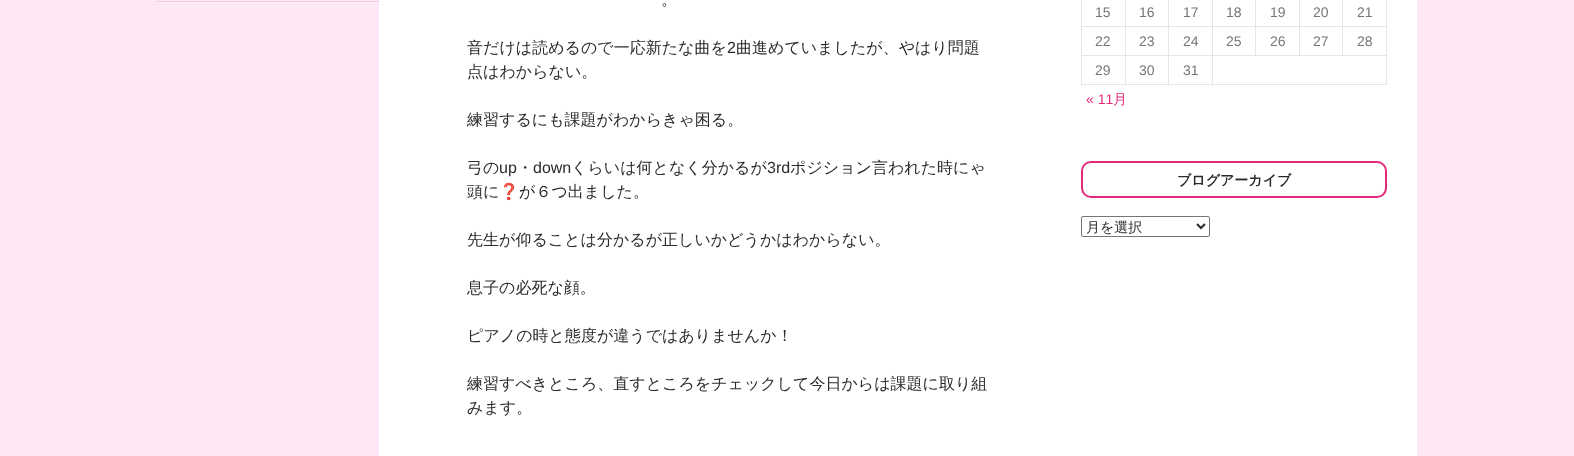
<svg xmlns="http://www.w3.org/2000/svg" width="1574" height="456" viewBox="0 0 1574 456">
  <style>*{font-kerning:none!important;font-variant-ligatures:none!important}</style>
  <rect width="100%" height="100%" fill="#ffe8f6"/>
  <rect x="379" y="0" width="1038" height="456" fill="#ffffff"/>
  <rect x="157" y="2" width="222" height="1" fill="#ffedf8"/>
  <rect x="157" y="1" width="222" height="1" fill="#f9c2de"/>
  <text x="661" y="5" font-family="WenQuanYi Zen Hei" font-size="16" font-weight="500" fill="#2b2b2b">。</text>
  <text x="467" y="53" font-family="WenQuanYi Zen Hei" font-size="16" font-weight="500" fill="#2b2b2b">音だけは読めるので一応新たな曲を</text>
  <text x="727" y="53" font-family="Liberation Sans" font-size="16" fill="#2b2b2b">2</text>
  <text x="736" y="53" font-family="WenQuanYi Zen Hei" font-size="16" font-weight="500" fill="#2b2b2b">曲進めていましたが、やはり問題</text>
  <text x="467" y="77" font-family="WenQuanYi Zen Hei" font-size="16" font-weight="500" fill="#2b2b2b">点はわからない。</text>
  <text x="467" y="125" font-family="WenQuanYi Zen Hei" font-size="16" font-weight="500" fill="#2b2b2b">練習するにも課題がわからきゃ困る。</text>
  <text x="467" y="173" font-family="WenQuanYi Zen Hei" font-size="16" font-weight="500" fill="#2b2b2b">弓の</text>
  <text x="499" y="173" font-family="Liberation Sans" font-size="16" fill="#2b2b2b">up</text>
  <text x="517" y="173" font-family="WenQuanYi Zen Hei" font-size="16" font-weight="500" fill="#2b2b2b">・</text>
  <text x="533" y="173" font-family="Liberation Sans" font-size="16" fill="#2b2b2b">down</text>
  <text x="571" y="173" font-family="WenQuanYi Zen Hei" font-size="16" font-weight="500" fill="#2b2b2b">くらいは何となく分かるが</text>
  <text x="767" y="173" font-family="Liberation Sans" font-size="16" fill="#2b2b2b">3rd</text>
  <text x="790" y="173" font-family="WenQuanYi Zen Hei" font-size="16" font-weight="500" fill="#2b2b2b">ポジション言われた時にゃ</text>
  <text x="467" y="197" font-family="WenQuanYi Zen Hei" font-size="16" font-weight="500" fill="#2b2b2b">頭に</text>
  <text x="499" y="197" font-family="Noto Color Emoji" font-size="16" fill="#2b2b2b">❓</text>
  <text x="519" y="197" font-family="WenQuanYi Zen Hei" font-size="16" font-weight="500" fill="#2b2b2b">が６つ出ました。</text>
  <text x="467" y="245" font-family="WenQuanYi Zen Hei" font-size="16" font-weight="500" fill="#2b2b2b">先生が仰ることは分かるが正しいかどうかはわからない。</text>
  <text x="467" y="293" font-family="WenQuanYi Zen Hei" font-size="16" font-weight="500" fill="#2b2b2b">息子の必死な顔。</text>
  <text x="467" y="341" font-family="WenQuanYi Zen Hei" font-size="16" font-weight="500" fill="#2b2b2b">ピアノの時と態度が違うではありませんか！</text>
  <text x="467" y="389" font-family="WenQuanYi Zen Hei" font-size="16" font-weight="500" fill="#2b2b2b">練習すべきところ、直すところをチェックして今日からは課題に取り組</text>
  <text x="467" y="413" font-family="WenQuanYi Zen Hei" font-size="16" font-weight="500" fill="#2b2b2b">みます。</text>
  <path d="M1081 85V-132L1082-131V85Z" fill="#e6e6e6"/>
  <path d="M1126-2V27L1125 26V-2Z" fill="#e6e6e6"/>
  <path d="M1126 27H1082V26H1125Z" fill="#000000" fill-opacity="0.1"/>
  <text x="1095" y="17" font-family="Liberation Sans" font-size="14" fill="#767676">15</text>
  <path d="M1169-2V27L1168 26V-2Z" fill="#e6e6e6"/>
  <path d="M1169 27H1126V26H1168Z" fill="#000000" fill-opacity="0.1"/>
  <text x="1139" y="17" font-family="Liberation Sans" font-size="14" fill="#767676">16</text>
  <path d="M1213-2V27L1212 26V-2Z" fill="#e6e6e6"/>
  <path d="M1213 27H1169V26H1212Z" fill="#000000" fill-opacity="0.1"/>
  <text x="1183" y="17" font-family="Liberation Sans" font-size="14" fill="#767676">17</text>
  <path d="M1256-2V27L1255 26V-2Z" fill="#e6e6e6"/>
  <path d="M1256 27H1213V26H1255Z" fill="#000000" fill-opacity="0.1"/>
  <text x="1226" y="17" font-family="Liberation Sans" font-size="14" fill="#767676">18</text>
  <path d="M1300-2V27L1299 26V-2Z" fill="#e6e6e6"/>
  <path d="M1300 27H1256V26H1299Z" fill="#000000" fill-opacity="0.1"/>
  <text x="1270" y="17" font-family="Liberation Sans" font-size="14" fill="#767676">19</text>
  <path d="M1343-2V27L1342 26V-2Z" fill="#e6e6e6"/>
  <path d="M1343 27H1300V26H1342Z" fill="#000000" fill-opacity="0.1"/>
  <text x="1313" y="17" font-family="Liberation Sans" font-size="14" fill="#767676">20</text>
  <path d="M1387-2V27L1386 26V-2Z" fill="#e6e6e6"/>
  <path d="M1387 27H1343V26H1386Z" fill="#000000" fill-opacity="0.1"/>
  <text x="1357" y="17" font-family="Liberation Sans" font-size="14" fill="#767676">21</text>
  <path d="M1126 27V56L1125 55V27Z" fill="#e6e6e6"/>
  <path d="M1126 56H1082V55H1125Z" fill="#000000" fill-opacity="0.1"/>
  <text x="1095" y="46" font-family="Liberation Sans" font-size="14" fill="#767676">22</text>
  <path d="M1169 27V56L1168 55V27Z" fill="#e6e6e6"/>
  <path d="M1169 56H1126V55H1168Z" fill="#000000" fill-opacity="0.1"/>
  <text x="1139" y="46" font-family="Liberation Sans" font-size="14" fill="#767676">23</text>
  <path d="M1213 27V56L1212 55V27Z" fill="#e6e6e6"/>
  <path d="M1213 56H1169V55H1212Z" fill="#000000" fill-opacity="0.1"/>
  <text x="1183" y="46" font-family="Liberation Sans" font-size="14" fill="#767676">24</text>
  <path d="M1256 27V56L1255 55V27Z" fill="#e6e6e6"/>
  <path d="M1256 56H1213V55H1255Z" fill="#000000" fill-opacity="0.1"/>
  <text x="1226" y="46" font-family="Liberation Sans" font-size="14" fill="#767676">25</text>
  <path d="M1300 27V56L1299 55V27Z" fill="#e6e6e6"/>
  <path d="M1300 56H1256V55H1299Z" fill="#000000" fill-opacity="0.1"/>
  <text x="1270" y="46" font-family="Liberation Sans" font-size="14" fill="#767676">26</text>
  <path d="M1343 27V56L1342 55V27Z" fill="#e6e6e6"/>
  <path d="M1343 56H1300V55H1342Z" fill="#000000" fill-opacity="0.1"/>
  <text x="1313" y="46" font-family="Liberation Sans" font-size="14" fill="#767676">27</text>
  <path d="M1387 27V56L1386 55V27Z" fill="#e6e6e6"/>
  <path d="M1387 56H1343V55H1386Z" fill="#000000" fill-opacity="0.1"/>
  <text x="1357" y="46" font-family="Liberation Sans" font-size="14" fill="#767676">28</text>
  <path d="M1126 56V85L1125 84V56Z" fill="#e6e6e6"/>
  <path d="M1126 85H1082V84H1125Z" fill="#000000" fill-opacity="0.1"/>
  <text x="1095" y="75" font-family="Liberation Sans" font-size="14" fill="#767676">29</text>
  <path d="M1169 56V85L1168 84V56Z" fill="#e6e6e6"/>
  <path d="M1169 85H1126V84H1168Z" fill="#000000" fill-opacity="0.1"/>
  <text x="1139" y="75" font-family="Liberation Sans" font-size="14" fill="#767676">30</text>
  <path d="M1213 56V85L1212 84V56Z" fill="#e6e6e6"/>
  <path d="M1213 85H1169V84H1212Z" fill="#000000" fill-opacity="0.1"/>
  <text x="1183" y="75" font-family="Liberation Sans" font-size="14" fill="#767676">31</text>
  <path d="M1387 56V85L1386 84V56Z" fill="#e6e6e6"/>
  <path d="M1387 85H1213V84H1386Z" fill="#000000" fill-opacity="0.1"/>
  <text x="1086" y="104" font-family="Liberation Sans" font-size="14" fill="#e3297d">« 11</text>
  <text x="1113" y="104" font-family="WenQuanYi Zen Hei" font-size="14" font-weight="500" fill="#e3297d">月</text>
  <rect x="1082" y="162" width="304" height="35" rx="9" fill="none" stroke="#e3297d" stroke-width="2"/>
  <text x="1177" y="185" font-family="WenQuanYi Zen Hei" font-size="14" font-weight="bold" fill="#2b2b2b">ブログアーカイブ</text>
  <rect x="1081.5" y="216.5" width="128" height="20" rx="1.5" fill="none" stroke="#767676"/>
  <path d="M1197 224L1201 228L1205 224" fill="none" stroke="#2b2b2b" stroke-width="2"/>
  <text x="1086" y="232" font-family="WenQuanYi Zen Hei" font-size="14" font-weight="500" fill="#2b2b2b">月を選択</text>
</svg>
